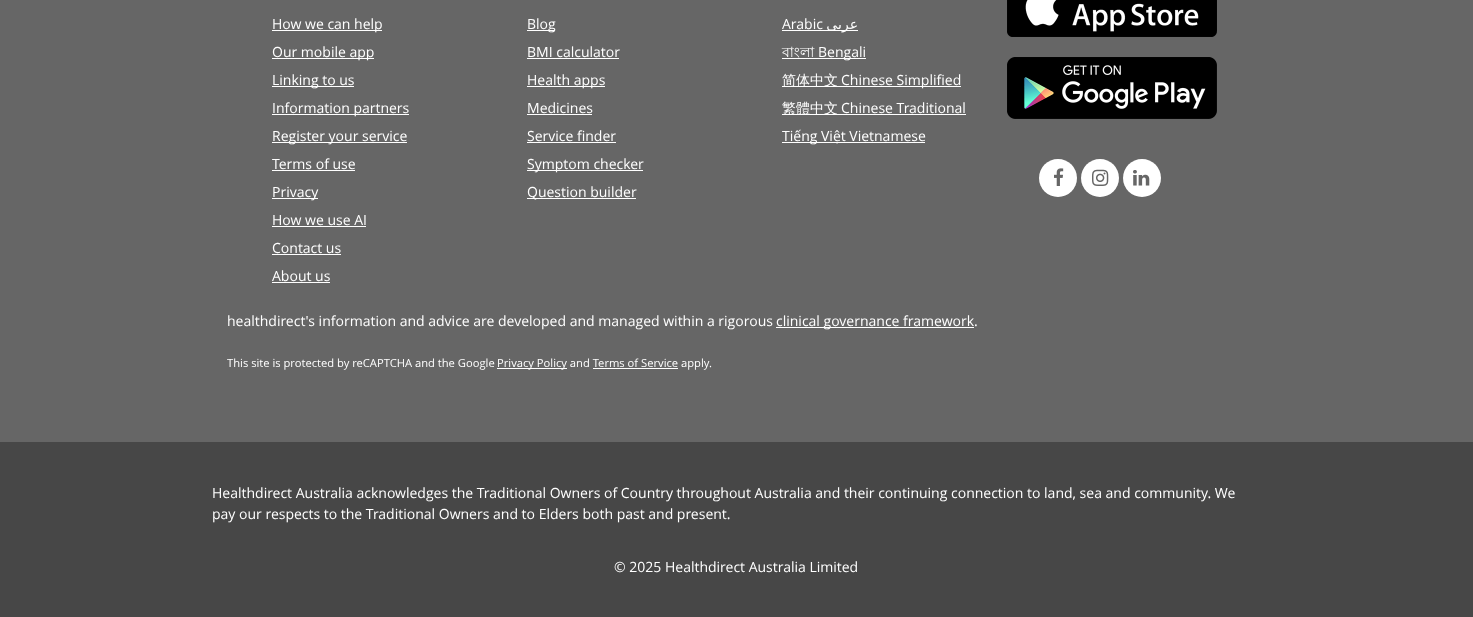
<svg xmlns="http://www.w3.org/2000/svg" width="1473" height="617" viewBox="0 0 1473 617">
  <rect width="100%" height="100%" fill="#666666"/>
  <rect x="272" y="30" width="110" height="1" fill="#ffffff"/>
  <text x="272" y="29" font-family="Open Sans" font-size="14" fill="#ffffff">How we can help</text>
  <rect x="272" y="58" width="102" height="1" fill="#ffffff"/>
  <text x="272" y="57" font-family="Open Sans" font-size="14" fill="#ffffff">Our mobile app</text>
  <rect x="272" y="86" width="82" height="1" fill="#ffffff"/>
  <text x="272" y="85" font-family="Open Sans" font-size="14" fill="#ffffff">Linking to us</text>
  <rect x="272" y="114" width="137" height="1" fill="#ffffff"/>
  <text x="272" y="113" font-family="Open Sans" font-size="14" fill="#ffffff">Information partners</text>
  <rect x="272" y="142" width="135" height="1" fill="#ffffff"/>
  <text x="272" y="141" font-family="Open Sans" font-size="14" fill="#ffffff">Register your service</text>
  <text x="272" y="169" font-family="Open Sans" font-size="14" fill="#ffffff">Terms of use</text>
  <rect x="272" y="170" width="83" height="1" fill="#ffffff"/>
  <rect x="272" y="198" width="46" height="1" fill="#ffffff"/>
  <text x="272" y="197" font-family="Open Sans" font-size="14" fill="#ffffff">Privacy</text>
  <text x="272" y="225" font-family="Open Sans" font-size="14" fill="#ffffff">How we use AI</text>
  <rect x="272" y="226" width="94" height="1" fill="#ffffff"/>
  <text x="272" y="253" font-family="Open Sans" font-size="14" fill="#ffffff">Contact us</text>
  <rect x="272" y="254" width="69" height="1" fill="#ffffff"/>
  <text x="272" y="281" font-family="Open Sans" font-size="14" fill="#ffffff">About us</text>
  <rect x="272" y="282" width="58" height="1" fill="#ffffff"/>
  <rect x="527" y="30" width="28" height="1" fill="#ffffff"/>
  <text x="527" y="29" font-family="Open Sans" font-size="14" fill="#ffffff">Blog</text>
  <text x="527" y="57" font-family="Open Sans" font-size="14" fill="#ffffff">BMI calculator</text>
  <rect x="527" y="58" width="92" height="1" fill="#ffffff"/>
  <rect x="527" y="86" width="78" height="1" fill="#ffffff"/>
  <text x="527" y="85" font-family="Open Sans" font-size="14" fill="#ffffff">Health apps</text>
  <text x="527" y="113" font-family="Open Sans" font-size="14" fill="#ffffff">Medicines</text>
  <rect x="527" y="114" width="65" height="1" fill="#ffffff"/>
  <text x="527" y="141" font-family="Open Sans" font-size="14" fill="#ffffff">Service finder</text>
  <rect x="527" y="142" width="89" height="1" fill="#ffffff"/>
  <rect x="527" y="170" width="116" height="1" fill="#ffffff"/>
  <text x="527" y="169" font-family="Open Sans" font-size="14" fill="#ffffff">Symptom checker</text>
  <rect x="527" y="198" width="109" height="1" fill="#ffffff"/>
  <text x="527" y="197" font-family="Open Sans" font-size="14" fill="#ffffff">Question builder</text>
  <text x="782" y="29" font-family="Open Sans" font-size="14" fill="#ffffff">Arabic</text>
  <rect x="782" y="30" width="76" height="1" fill="#ffffff"/>
  <text x="858" y="29" font-family="DejaVu Sans" font-size="14" direction="rtl" fill="#ffffff">عربى</text>
  <text x="782" y="57" font-family="Lohit Bengali" font-size="14" fill="#ffffff">বাংলা</text>
  <rect x="782" y="58" width="84" height="1" fill="#ffffff"/>
  <text x="818" y="57" font-family="Open Sans" font-size="14" fill="#ffffff">Bengali</text>
  <rect x="782" y="86" width="179" height="1" fill="#ffffff"/>
  <text x="782" y="85" font-family="WenQuanYi Zen Hei" font-size="14" font-weight="500" fill="#ffffff">简体中文</text>
  <text x="841" y="85" font-family="Open Sans" font-size="14" fill="#ffffff">Chinese Simplified</text>
  <rect x="782" y="114" width="184" height="1" fill="#ffffff"/>
  <text x="782" y="113" font-family="WenQuanYi Zen Hei" font-size="14" font-weight="500" fill="#ffffff">繁體中文</text>
  <text x="841" y="113" font-family="Open Sans" font-size="14" fill="#ffffff">Chinese Traditional</text>
  <rect x="782" y="142" width="143" height="1" fill="#ffffff"/>
  <text x="782" y="141" font-family="Open Sans" font-size="14" fill="#ffffff">Tiếng Việt Vietnamese</text>
  <image x="1007" y="0" width="210" height="37" href="img1.png"/>
  <image x="1007" y="57" width="210" height="62" href="img2.png"/>
  <circle cx="1058" cy="178" r="19" fill="#ffffff"/>
  <image x="1054" y="168" width="10" height="18" href="img3.png"/>
  <circle cx="1100" cy="178" r="19" fill="#ffffff"/>
  <image x="1092" y="169" width="17" height="17" href="img4.png"/>
  <circle cx="1142" cy="178" r="19" fill="#ffffff"/>
  <image x="1133" y="170" width="17" height="16" href="img5.png"/>
  <text x="227" y="326" font-family="Open Sans" font-size="14" fill="#ffffff">healthdirect's information and advice are developed and managed within a rigorous</text>
  <rect x="776" y="327" width="198" height="1" fill="#ffffff"/>
  <text x="776" y="326" font-family="Open Sans" font-size="14" fill="#ffffff">clinical governance framework.</text>
  <text x="227" y="367" font-family="Open Sans" font-size="11.2" fill="#ffffff">This site is protected by reCAPTCHA and the Google</text>
  <rect x="497" y="368" width="70" height="1" fill="#ffffff"/>
  <text x="497" y="367" font-family="Open Sans" font-size="11.2" fill="#ffffff">Privacy Policy and Terms of Service apply.</text>
  <rect x="593" y="368" width="85" height="1" fill="#ffffff"/>
  <rect x="0" y="442" width="1473" height="175" fill="#474747"/>
  <text x="212" y="498" font-family="Open Sans" font-size="14" fill="#ffffff">Healthdirect Australia acknowledges the Traditional Owners of Country throughout Australia and their continuing connection to land, sea and community. We</text>
  <text x="212" y="519" font-family="Open Sans" font-size="14" fill="#ffffff">pay our respects to the Traditional Owners and to Elders both past and present.</text>
  <text x="614" y="572" font-family="Open Sans" font-size="14" fill="#ffffff">© 2025 Healthdirect Australia Limited</text>
</svg>
